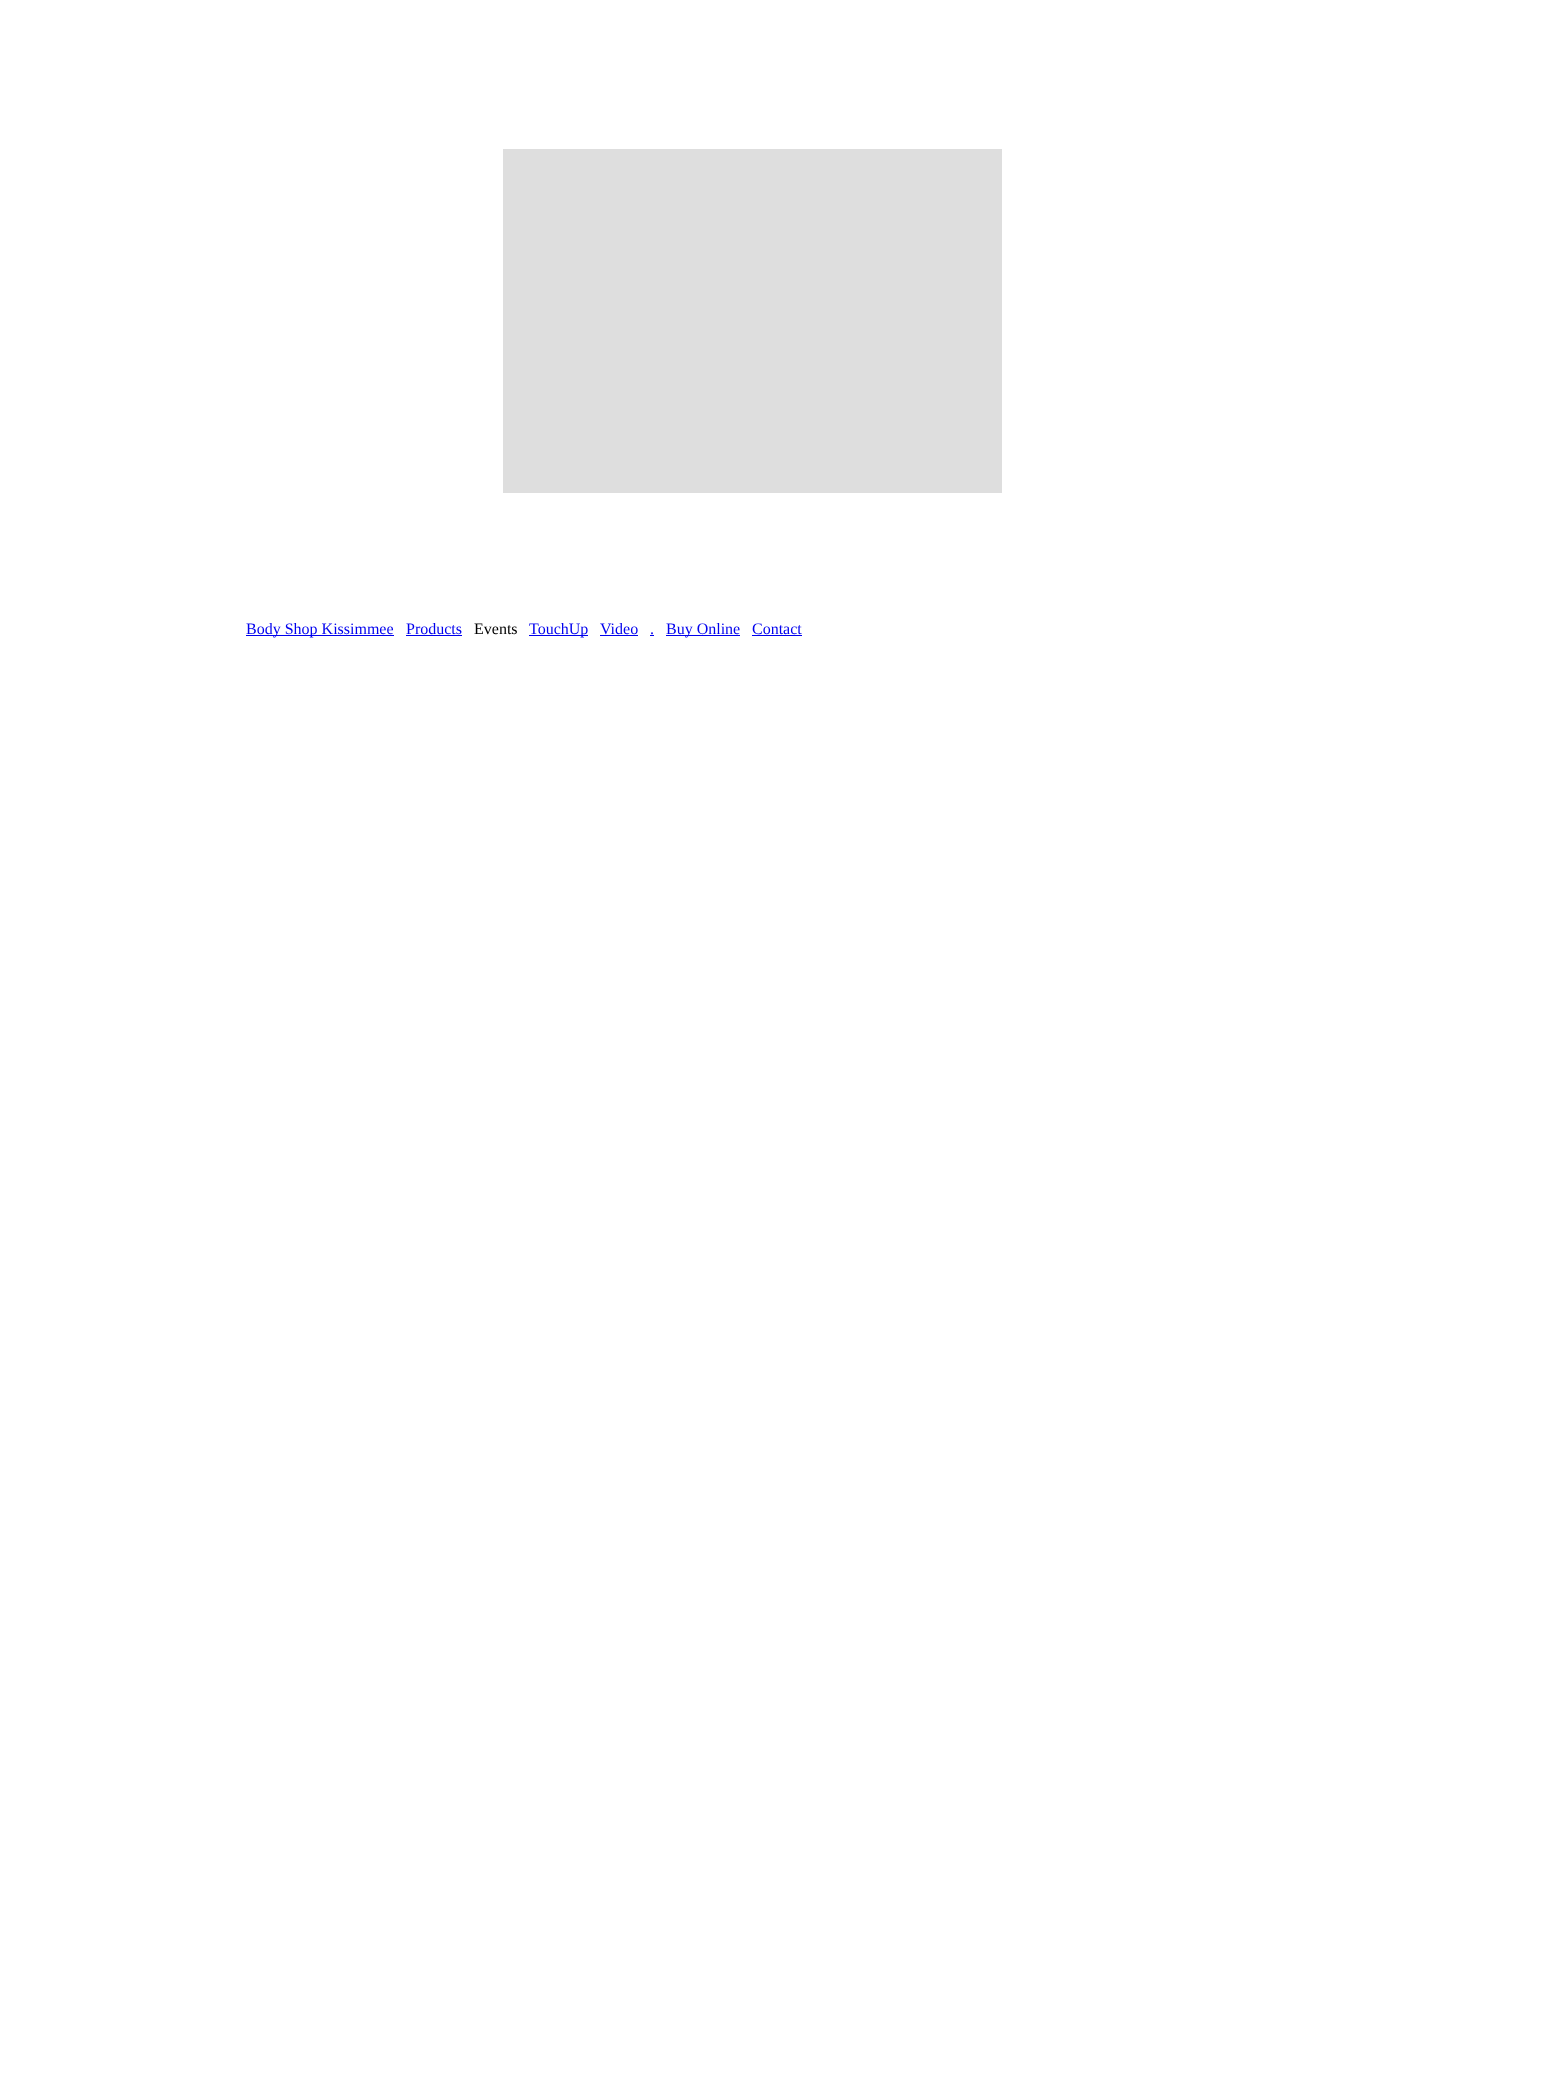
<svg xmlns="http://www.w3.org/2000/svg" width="1558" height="2075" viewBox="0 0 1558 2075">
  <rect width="100%" height="100%" fill="#ffffff"/>
  <rect x="503" y="149" width="499" height="344" fill="#dedede"/>
  <rect x="246" y="635" width="148" height="1" fill="#0000ee"/>
  <text x="246" y="634" font-family="Liberation Serif" font-size="16" fill="#0000ee">Body Shop Kissimmee</text>
  <text x="406" y="634" font-family="Liberation Serif" font-size="16" fill="#0000ee">Products</text>
  <rect x="406" y="635" width="56" height="1" fill="#0000ee"/>
  <text x="474" y="634" font-family="Liberation Serif" font-size="16" fill="#000000">Events</text>
  <rect x="529" y="635" width="59" height="1" fill="#0000ee"/>
  <text x="529" y="634" font-family="Liberation Serif" font-size="16" fill="#0000ee">TouchUp</text>
  <text x="600" y="634" font-family="Liberation Serif" font-size="16" fill="#0000ee">Video</text>
  <rect x="600" y="635" width="38" height="1" fill="#0000ee"/>
  <text x="650" y="634" font-family="Liberation Serif" font-size="16" fill="#0000ee">.</text>
  <rect x="650" y="635" width="4" height="1" fill="#0000ee"/>
  <rect x="666" y="635" width="74" height="1" fill="#0000ee"/>
  <text x="666" y="634" font-family="Liberation Serif" font-size="16" fill="#0000ee">Buy Online</text>
  <text x="752" y="634" font-family="Liberation Serif" font-size="16" fill="#0000ee">Contact</text>
  <rect x="752" y="635" width="50" height="1" fill="#0000ee"/>
</svg>
